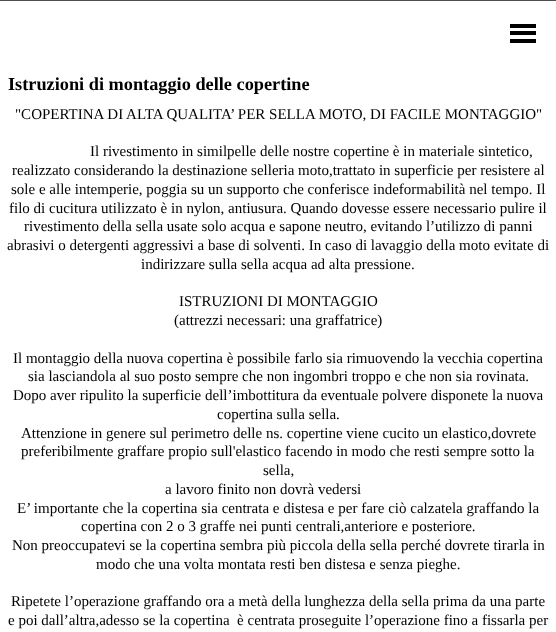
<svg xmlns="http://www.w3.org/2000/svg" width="556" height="632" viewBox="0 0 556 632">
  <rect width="100%" height="100%" fill="#ffffff"/>
  <rect x="0" y="0" width="556" height="1" fill="#4f4f4f"/>
  <rect x="510" y="24" width="26" height="4" fill="#000000"/>
  <rect x="510" y="31" width="26" height="4" fill="#000000"/>
  <rect x="510" y="39" width="26" height="4" fill="#000000"/>
  <text x="8" y="90" font-family="Liberation Serif" font-size="18.3" font-weight="bold" fill="#000000">Istruzioni di montaggio delle copertine</text>
  <text x="15" y="119" font-family="Liberation Serif" font-size="15" fill="#000000">"COPERTINA DI ALTA QUALITA’ PER SELLA MOTO, DI FACILE MONTAGGIO"</text>
  <text x="90" y="156" font-family="Liberation Serif" font-size="15" fill="#000000">Il rivestimento in similpelle delle nostre copertine è in materiale sintetico,</text>
  <text x="12" y="175" font-family="Liberation Serif" font-size="15" fill="#000000">realizzato considerando la destinazione selleria moto,trattato in superficie per resistere al</text>
  <text x="11" y="194" font-family="Liberation Serif" font-size="15" fill="#000000">sole e alle intemperie, poggia su un supporto che conferisce indeformabilità nel tempo. Il</text>
  <text x="9" y="213" font-family="Liberation Serif" font-size="15" fill="#000000">filo di cucitura utilizzato è in nylon, antiusura. Quando dovesse essere necessario pulire il</text>
  <text x="24" y="231" font-family="Liberation Serif" font-size="15" fill="#000000">rivestimento della sella usate solo acqua e sapone neutro, evitando l’utilizzo di panni</text>
  <text x="7" y="250" font-family="Liberation Serif" font-size="15" fill="#000000">abrasivi o detergenti aggressivi a base di solventi. In caso di lavaggio della moto evitate di</text>
  <text x="141" y="269" font-family="Liberation Serif" font-size="15" fill="#000000">indirizzare sulla sella acqua ad alta pressione.</text>
  <text x="179" y="306" font-family="Liberation Serif" font-size="15" fill="#000000">ISTRUZIONI DI MONTAGGIO</text>
  <text x="174" y="325" font-family="Liberation Serif" font-size="15" fill="#000000">(attrezzi necessari: una graffatrice)</text>
  <text x="13" y="363" font-family="Liberation Serif" font-size="15" fill="#000000">Il montaggio della nuova copertina è possibile farlo sia rimuovendo la vecchia copertina</text>
  <text x="28" y="381" font-family="Liberation Serif" font-size="15" fill="#000000">sia lasciandola al suo posto sempre che non ingombri troppo e che non sia rovinata.</text>
  <text x="13" y="400" font-family="Liberation Serif" font-size="15" fill="#000000">Dopo aver ripulito la superficie dell’imbottitura da eventuale polvere disponete la nuova</text>
  <text x="217" y="419" font-family="Liberation Serif" font-size="15" fill="#000000">copertina sulla sella.</text>
  <text x="21" y="438" font-family="Liberation Serif" font-size="15" fill="#000000">Attenzione in genere sul perimetro delle ns. copertine viene cucito un elastico,dovrete</text>
  <text x="21" y="456" font-family="Liberation Serif" font-size="15" fill="#000000">preferibilmente graffare propio sull'elastico facendo in modo che resti sempre sotto la</text>
  <text x="263" y="475" font-family="Liberation Serif" font-size="15" fill="#000000">sella,</text>
  <text x="165" y="494" font-family="Liberation Serif" font-size="15" fill="#000000">a lavoro finito non dovrà vedersi</text>
  <text x="17" y="513" font-family="Liberation Serif" font-size="15" fill="#000000">E’ importante che la copertina sia centrata e distesa e per fare ciò calzatela graffando la</text>
  <text x="81" y="531" font-family="Liberation Serif" font-size="15" fill="#000000">copertina con 2 o 3 graffe nei punti centrali,anteriore e posteriore.</text>
  <text x="12" y="550" font-family="Liberation Serif" font-size="15" fill="#000000">Non preoccupatevi se la copertina sembra più piccola della sella perché dovrete tirarla in</text>
  <text x="96" y="569" font-family="Liberation Serif" font-size="15" fill="#000000">modo che una volta montata resti ben distesa e senza pieghe.</text>
  <text x="11" y="606" font-family="Liberation Serif" font-size="15" fill="#000000">Ripetete l’operazione graffando ora a metà della lunghezza della sella prima da una parte</text>
  <text x="8" y="625" font-family="Liberation Serif" font-size="15" fill="#000000" xml:space="preserve">e poi dall’altra,adesso se la copertina  è centrata proseguite l’operazione fino a fissarla per</text>
</svg>
